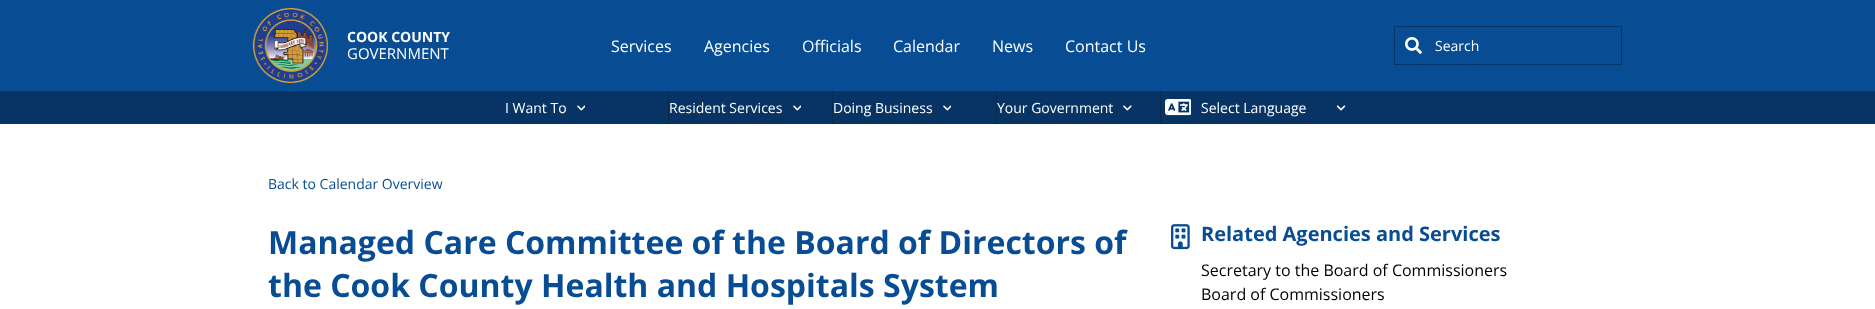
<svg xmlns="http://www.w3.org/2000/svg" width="1875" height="309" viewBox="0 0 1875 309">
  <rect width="100%" height="100%" fill="#ffffff"/>
  <rect x="0" y="0" width="1875" height="91" fill="#084d94"/>
  <image x="252" y="8" width="76" height="75" href="img1.png"/>
  <text x="347" y="42" font-family="Open Sans" font-size="14" font-weight="bold" fill="#ffffff">COOK COUNTY</text>
  <text x="347" y="59" font-family="Open Sans" font-size="15" fill="#ffffff">GOVERNMENT</text>
  <text x="611" y="52" font-family="Open Sans" font-size="16" fill="#ffffff">Services</text>
  <text x="704" y="52" font-family="Open Sans" font-size="16" fill="#ffffff">Agencies</text>
  <text x="802" y="52" font-family="Open Sans" font-size="16" fill="#ffffff">Officials</text>
  <text x="893" y="52" font-family="Open Sans" font-size="16" fill="#ffffff">Calendar</text>
  <text x="992" y="52" font-family="Open Sans" font-size="16" fill="#ffffff">News</text>
  <text x="1065" y="52" font-family="Open Sans" font-size="16" fill="#ffffff">Contact Us</text>
  <image x="1405" y="37" width="17" height="17" href="img2.png"/>
  <rect x="1394.5" y="26.5" width="227" height="38" fill="none" stroke="#073464"/>
  <text x="1435" y="51" font-family="Open Sans" font-size="14" fill="#ffffff">Search</text>
  <rect x="0" y="91" width="1875" height="33" fill="#073464"/>
  <rect x="668" y="91" width="1" height="33" fill="#062a50"/>
  <text x="505" y="113" font-family="Open Sans" font-size="14" fill="#ffffff">I Want To</text>
  <image x="577" y="105" width="8" height="6" href="img3.png"/>
  <rect x="832" y="91" width="1" height="33" fill="#062a50"/>
  <text x="669" y="113" font-family="Open Sans" font-size="14" fill="#ffffff">Resident Services</text>
  <image x="793" y="105" width="8" height="6" href="img3.png"/>
  <rect x="996" y="91" width="1" height="33" fill="#062a50"/>
  <text x="833" y="113" font-family="Open Sans" font-size="14" fill="#ffffff">Doing Business</text>
  <image x="943" y="105" width="8" height="6" href="img3.png"/>
  <rect x="1160" y="91" width="1" height="33" fill="#062a50"/>
  <text x="997" y="113" font-family="Open Sans" font-size="14" fill="#ffffff">Your Government</text>
  <image x="1123" y="105" width="9" height="6" href="img4.png"/>
  <image x="1165" y="99" width="26" height="17" href="img5.png"/>
  <image x="1336" y="105" width="10" height="6" href="img6.png"/>
  <text x="1201" y="113" font-family="Open Sans" font-size="14" fill="#ffffff">Select Language</text>
  <text x="268" y="189" font-family="Open Sans" font-size="14" fill="#084d94">Back to Calendar Overview</text>
  <text x="268" y="254" font-family="Open Sans" font-size="32" font-weight="bold" fill="#084d94">Managed Care Committee of the Board of Directors of</text>
  <text x="268" y="297" font-family="Open Sans" font-size="32" font-weight="bold" fill="#084d94">the Cook County Health and Hospitals System</text>
  <image x="1171" y="224" width="19" height="26" href="img7.png"/>
  <text x="1201" y="241" font-family="Open Sans" font-size="20" font-weight="bold" fill="#084d94">Related Agencies and Services</text>
  <text x="1201" y="276" font-family="Open Sans" font-size="16" fill="#000000">Secretary to the Board of Commissioners</text>
  <text x="1201" y="300" font-family="Open Sans" font-size="16" fill="#000000">Board of Commissioners</text>
</svg>
